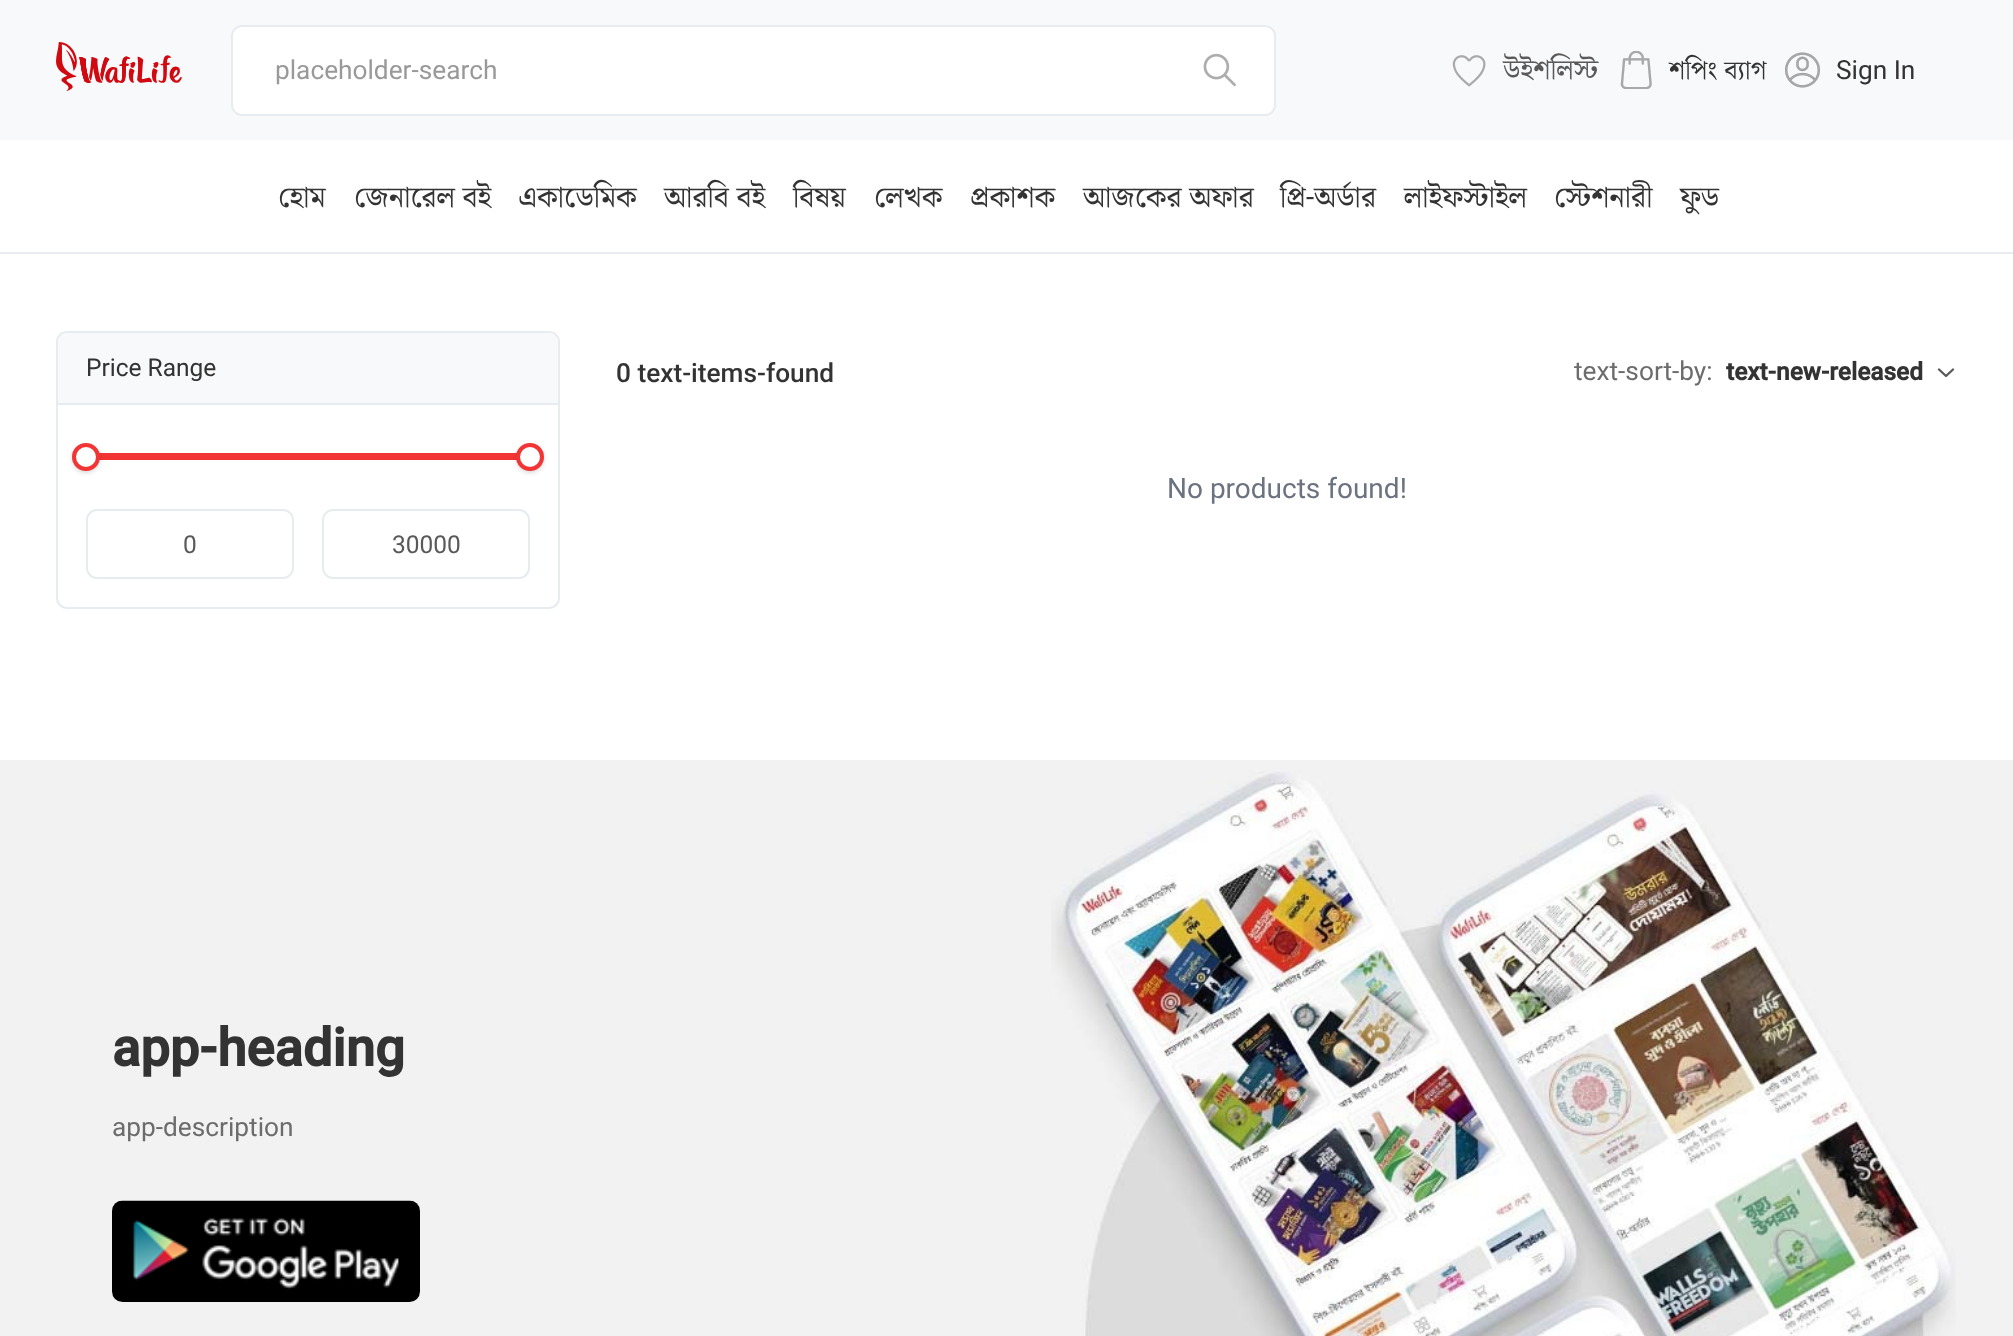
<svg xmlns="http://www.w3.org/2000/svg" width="2013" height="1336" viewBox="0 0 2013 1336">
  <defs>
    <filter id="blur1" x="-50%" y="-200%" width="200%" height="500%"><feGaussianBlur stdDeviation="2"/></filter>
    <filter id="blur2" x="-50%" y="-200%" width="200%" height="500%"><feGaussianBlur stdDeviation="2.5"/></filter>
  </defs>
  <rect width="100%" height="100%" fill="#ffffff"/>
  <rect x="0" y="0" width="2013" height="140" fill="#f8f9fb"/>
  <image x="56" y="42" width="126" height="49" href="img1.png"/>
  <rect x="232" y="26" width="1043" height="89" rx="10" fill="#ffffff" stroke="#e7ecf0" stroke-width="2"/>
  <text x="275" y="79" font-family="Roboto" font-size="26.25" fill="#999999">placeholder-search</text>
  <image x="1203" y="53" width="33" height="34" href="img2.png"/>
  <image x="1452" y="55" width="34" height="32" href="img3.png"/>
  <text x="1503" y="79" font-family="Noto Serif Bengali" font-size="28" fill="#595959">উইশলিস্ট</text>
  <image x="1620" y="51" width="32" height="38" href="img4.png"/>
  <text x="1669" y="79" font-family="Noto Serif Bengali" font-size="26.25" fill="#333333">শপিং ব্যাগ</text>
  <image x="1785" y="52" width="35" height="36" href="img5.png"/>
  <text x="1836" y="79" font-family="Roboto" font-size="26.25" fill="#333333">Sign In</text>
  <text x="278" y="207" font-family="Noto Serif Bengali" font-size="29.5" fill="#333333">হোম</text>
  <text x="354" y="207" font-family="Noto Serif Bengali" font-size="29.5" fill="#333333">জেনারেল বই</text>
  <text x="518" y="207" font-family="Noto Serif Bengali" font-size="29.5" fill="#333333">একাডেমিক</text>
  <text x="664" y="207" font-family="Noto Serif Bengali" font-size="29.5" fill="#333333">আরবি বই</text>
  <text x="793" y="207" font-family="Noto Serif Bengali" font-size="29.5" fill="#333333">বিষয়</text>
  <text x="874" y="207" font-family="Noto Serif Bengali" font-size="29.5" fill="#333333">লেখক</text>
  <text x="970" y="207" font-family="Noto Serif Bengali" font-size="29.5" fill="#333333">প্রকাশক</text>
  <text x="1083" y="207" font-family="Noto Serif Bengali" font-size="29.5" fill="#333333">আজকের অফার</text>
  <text x="1280" y="207" font-family="Noto Serif Bengali" font-size="29.5" fill="#333333">প্রি</text>
  <text x="1306" y="207" font-family="Roboto" font-size="29.5" fill="#333333">-</text>
  <text x="1314" y="207" font-family="Noto Serif Bengali" font-size="29.5" fill="#333333">অর্ডার</text>
  <text x="1404" y="207" font-family="Noto Serif Bengali" font-size="29.5" fill="#333333">লাইফস্টাইল</text>
  <text x="1554" y="207" font-family="Noto Serif Bengali" font-size="29.5" fill="#333333">স্টেশনারী</text>
  <text x="1680" y="207" font-family="Noto Serif Bengali" font-size="29.5" fill="#333333">ফুড</text>
  <rect x="0" y="252" width="2013" height="2" fill="#e7ecf0"/>
  <rect x="57" y="332" width="502" height="276" rx="10" fill="none" stroke="#e7ecf0" stroke-width="2"/>
  <path d="M67 333H549C554 333 558 337 558 342V403H58V342C58 337 62 333 67 333Z" fill="#f8f9fb"/>
  <rect x="58" y="403" width="500" height="2" fill="#e7ecf0"/>
  <text x="86" y="376" font-family="Roboto" font-size="24.5" fill="#333333">Price Range</text>
  <rect x="99" y="453" width="418" height="7" fill="#f23534"/>
  <rect x="74" y="446" width="24" height="25" rx="12" fill="#000000" fill-opacity="0.1" filter="url(#blur1)"/>
  <rect x="72" y="445" width="28" height="28" rx="14" fill="#000000" fill-opacity="0.1" filter="url(#blur2)"/>
  <circle cx="86" cy="457" r="12" fill="#ffffff" stroke="#f23534" stroke-width="4"/>
  <rect x="518" y="446" width="25" height="25" rx="12.5" fill="#000000" fill-opacity="0.1" filter="url(#blur1)"/>
  <rect x="516" y="445" width="28" height="28" rx="14" fill="#000000" fill-opacity="0.1" filter="url(#blur2)"/>
  <circle cx="530" cy="457" r="12" fill="#ffffff" stroke="#f23534" stroke-width="4"/>
  <rect x="87" y="510" width="206" height="68" rx="10" fill="none" stroke="#e7ecf0" stroke-width="2"/>
  <text x="183" y="553" font-family="Roboto" font-size="24.5" fill="#595959">0</text>
  <rect x="323" y="510" width="206" height="68" rx="10" fill="none" stroke="#e7ecf0" stroke-width="2"/>
  <text x="392" y="553" font-family="Roboto" font-size="24.5" fill="#595959">30000</text>
  <text x="616" y="382" font-family="Roboto" font-size="26.25" font-weight="500" fill="#333333">0 text-items-found</text>
  <text x="1574" y="380" font-family="Roboto" font-size="26.25" fill="#6c6c6c">text-sort-by:</text>
  <text x="1726" y="380" font-family="Roboto" font-size="24.5" font-weight="bold" fill="#333333">text-new-released</text>
  <path d="M1939 369.5L1946 376L1953 369.5" fill="none" stroke="#595959" stroke-width="2.3" stroke-linecap="round" stroke-linejoin="round"/>
  <text x="1167" y="498" font-family="Roboto" font-size="28" fill="#6b7280">No products found!</text>
  <rect x="0" y="760" width="2013" height="576" fill="#f2f2f2"/>
  <text x="112" y="1066" font-family="Roboto" font-size="52.5" font-weight="bold" fill="#333333">app-heading</text>
  <text x="112" y="1136" font-family="Roboto" font-size="26.25" fill="#6c6c6c">app-description</text>
  <image x="112" y="1200" width="308" height="102" href="img6.png"/>
  <image x="1051" y="770" width="905" height="566" href="img7.png"/>
</svg>
